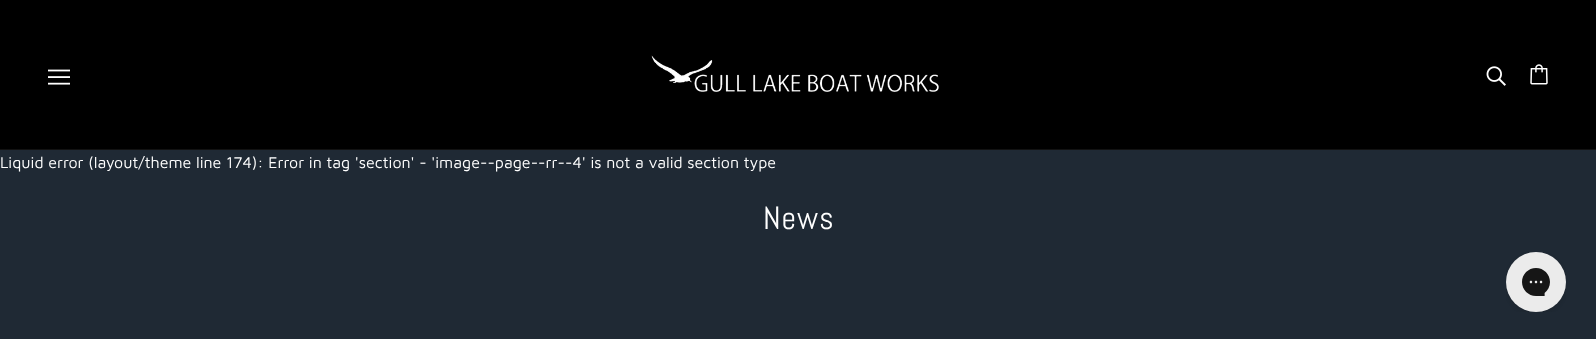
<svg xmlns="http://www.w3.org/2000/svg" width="1596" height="339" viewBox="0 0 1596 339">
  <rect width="100%" height="100%" fill="#1f2934"/>
  <rect x="0" y="0" width="1596" height="149" fill="#000000"/>
  <rect x="0" y="149" width="1596" height="1" fill="#121212"/>
  <image x="48" y="69" width="22" height="16" href="img1.png"/>
  <image x="651" y="55" width="288" height="37" href="img2.png"/>
  <image x="1486" y="66" width="20" height="20" href="img3.png"/>
  <image x="1530" y="64" width="18" height="21" href="img4.png"/>
  <text x="0" y="168" font-family="Maven Pro" font-size="16" fill="#ffffff">Liquid error (layout/theme line 174): Error in tag 'section' - 'image--page--rr--4' is not a valid section type</text>
  <text x="763" y="229" font-family="Abel" font-size="32" letter-spacing="1" fill="#ffffff">News</text>
  <image x="1506" y="252" width="60" height="60" href="img5.png"/>
</svg>
